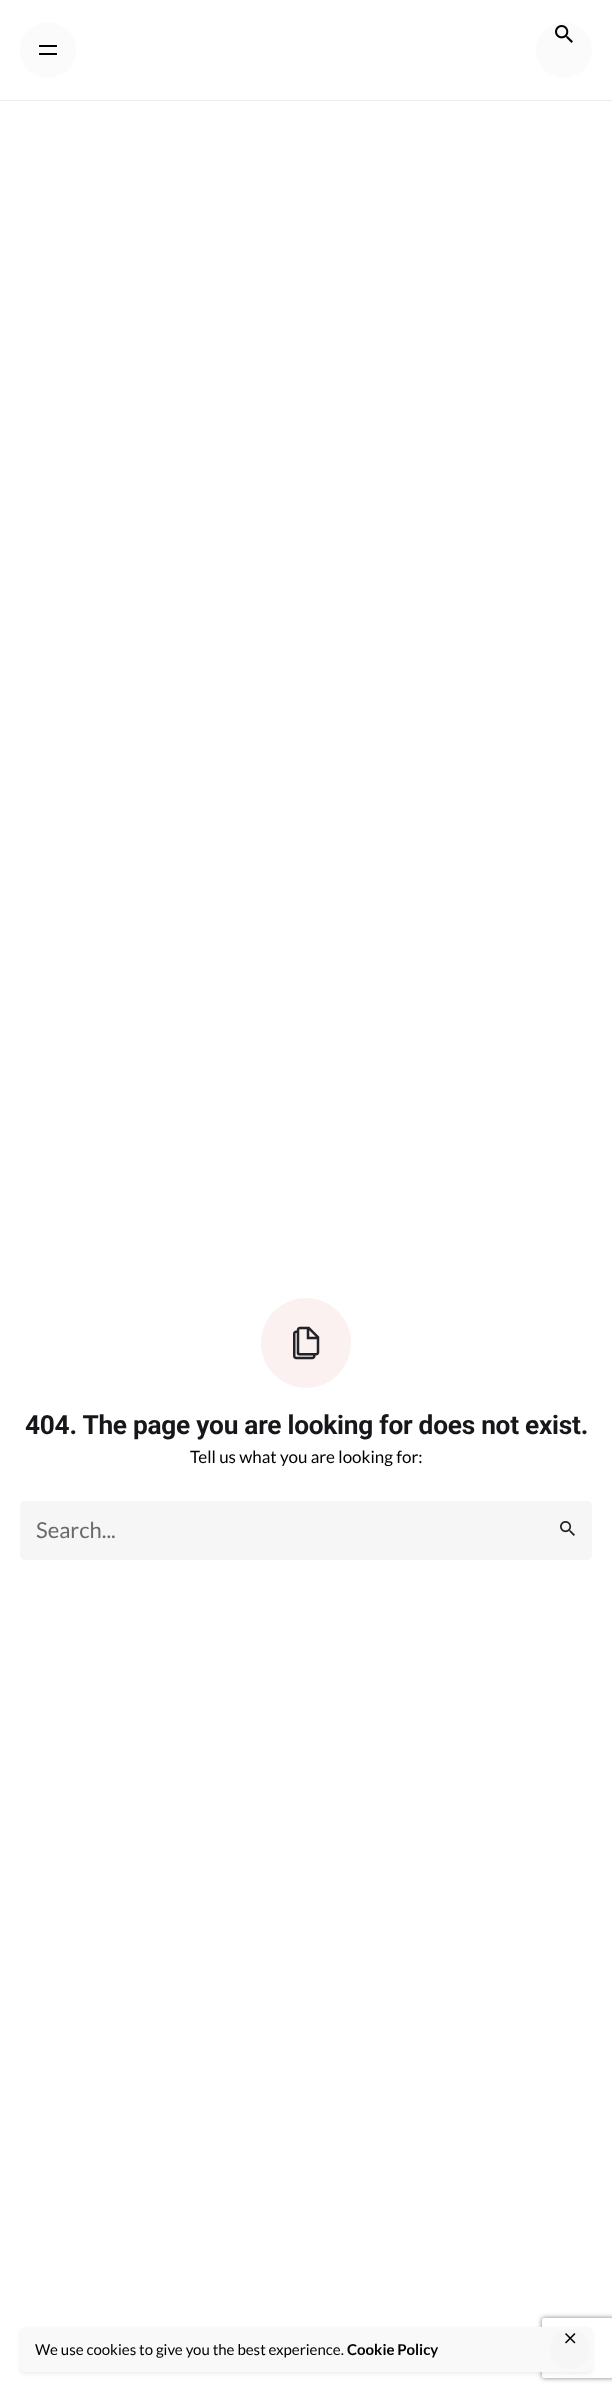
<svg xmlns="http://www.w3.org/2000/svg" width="612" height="2392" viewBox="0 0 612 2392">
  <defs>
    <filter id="blur1" x="-50%" y="-200%" width="200%" height="500%"><feGaussianBlur stdDeviation="2"/></filter>
    <clipPath id="clip1"><path d="M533 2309H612V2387H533ZM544 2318H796C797 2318 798 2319 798 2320V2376C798 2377 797 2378 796 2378H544C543 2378 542 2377 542 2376V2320C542 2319 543 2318 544 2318Z" clip-rule="evenodd"/></clipPath>
    <filter id="blur2" x="-50%" y="-200%" width="200%" height="500%"><feGaussianBlur stdDeviation="2.5"/></filter>
  </defs>
  <rect width="100%" height="100%" fill="#ffffff"/>
  <rect x="0" y="100" width="612" height="1" fill="#ededed"/>
  <circle cx="48" cy="50" r="28" fill="#fbfbfb"/>
  <rect x="39" y="45" width="18" height="2" fill="#000000"/>
  <rect x="39" y="53" width="18" height="2" fill="#000000"/>
  <circle cx="564" cy="50" r="28" fill="#fbfbfb"/>
  <image x="555" y="25" width="18" height="18" href="img1.png"/>
  <circle cx="306" cy="1343" r="45" fill="#fcf1f1"/>
  <image x="293" y="1326" width="27" height="34" href="img2.png"/>
  <text x="25" y="1434" font-family="Roboto" font-size="26.25" font-weight="bold" letter-spacing="-0.25" fill="#17161a">404. The page you are looking for does not exist.</text>
  <text x="190" y="1463" font-family="Lato" font-size="17" fill="#000000">Tell us what you are looking for:</text>
  <rect x="20" y="1501" width="572" height="59" rx="5" fill="#f6f6f6"/>
  <text x="36" y="1538" font-family="Lato" font-size="22" fill="#6a696c">Search...</text>
  <image x="560" y="1521" width="15" height="15" href="img3.png"/>
  <rect x="20" y="2329" width="572" height="45" rx="5" fill="#000000" fill-opacity="0.07" filter="url(#blur1)"/>
  <g clip-path="url(#clip1)">
    <rect x="542" y="2318" width="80" height="60" rx="2" fill="#808080" filter="url(#blur2)"/>
  </g>
  <rect x="20" y="2327" width="572" height="45" rx="5" fill="#f9f9f9"/>
  <text x="35" y="2355" font-family="Lato" font-size="15" fill="#000000">We use cookies to give you the best experience.</text>
  <text x="347" y="2355" font-family="Lato" font-size="15" font-weight="bold" fill="#000000">Cookie Policy</text>
  <circle cx="570" cy="2349" r="20" fill="#f6f6f6"/>
  <image x="565" y="2333" width="11" height="11" href="img4.png"/>
</svg>
